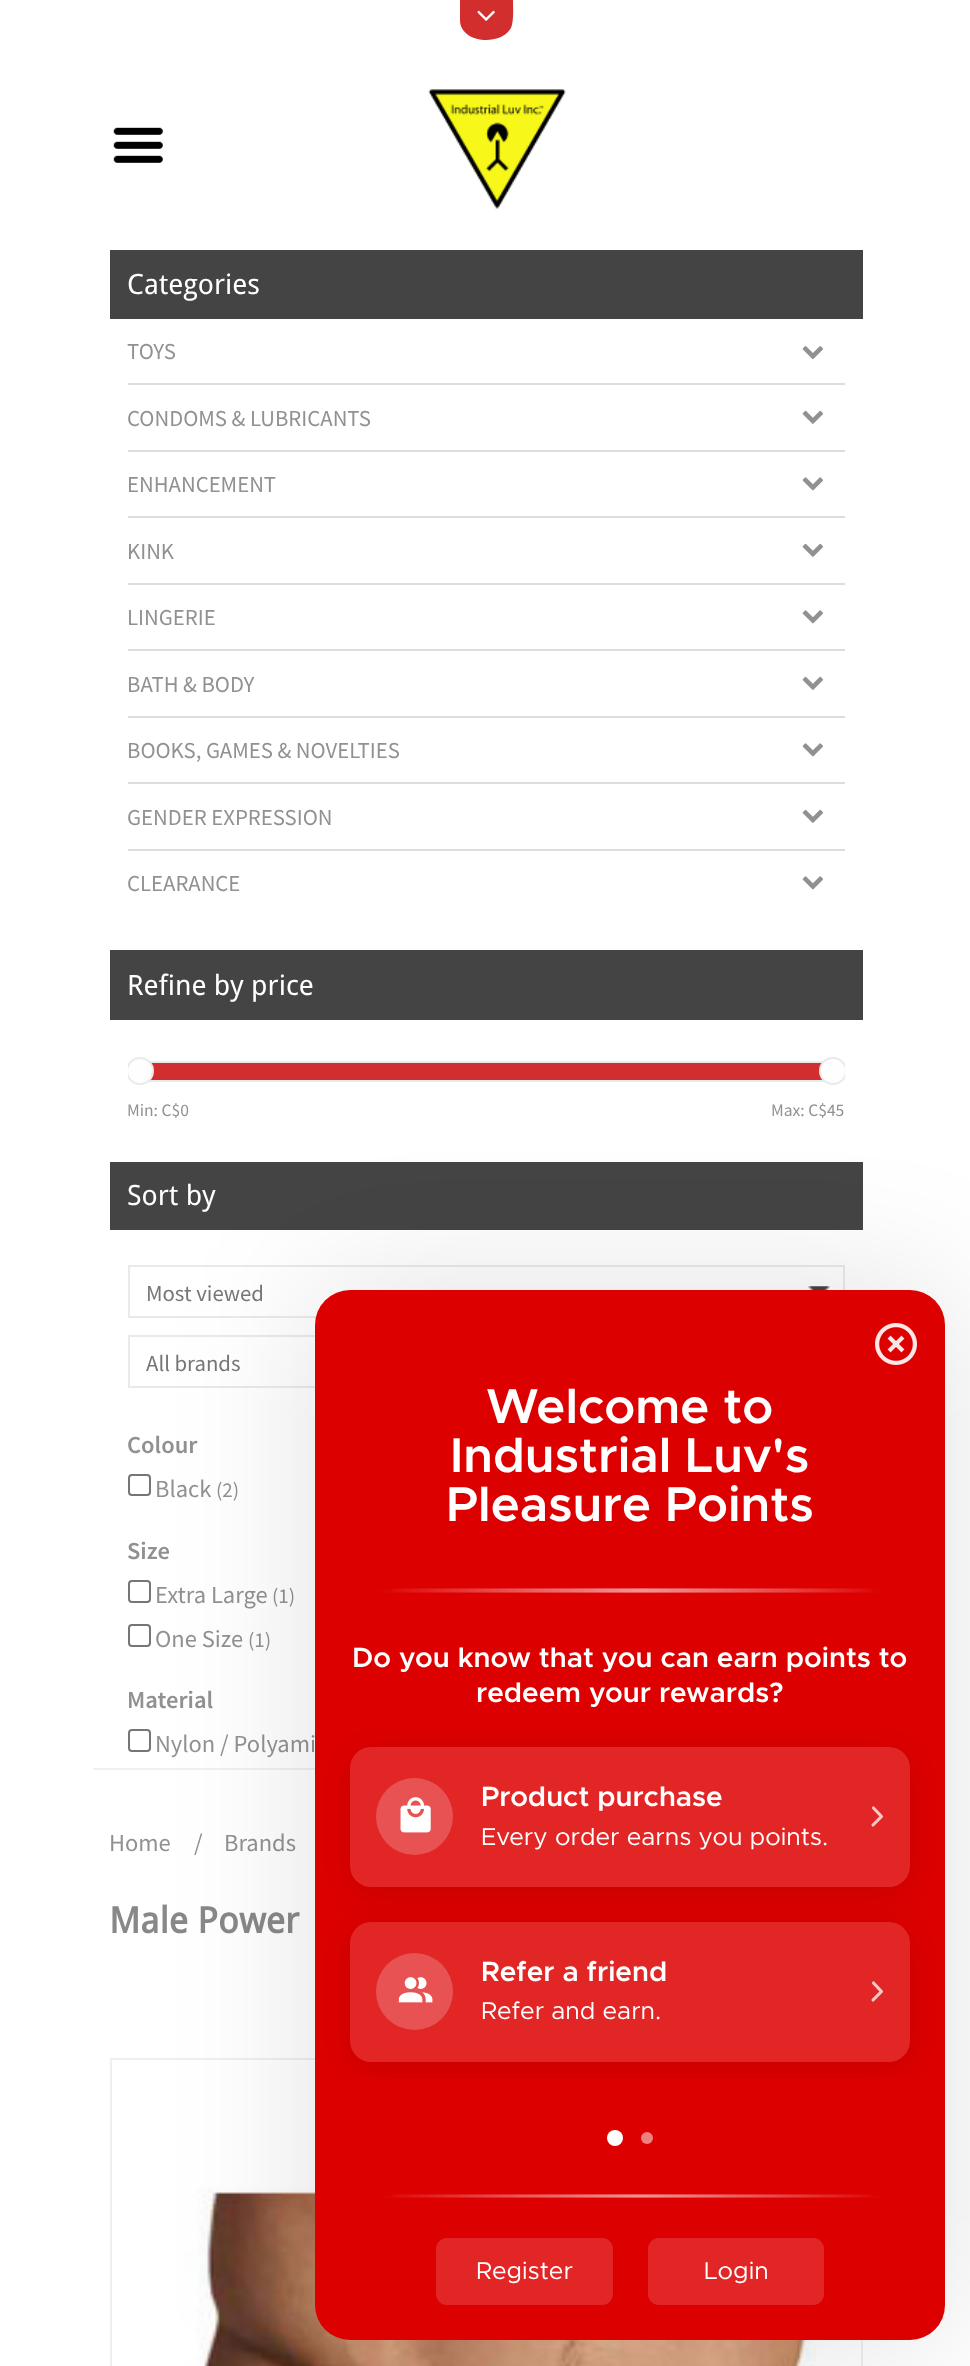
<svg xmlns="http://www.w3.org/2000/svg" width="970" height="2366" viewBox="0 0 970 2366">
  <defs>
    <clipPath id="clip1"><rect x="128" y="1055" width="717" height="72"/></clipPath>
    <filter id="blur1" x="-50%" y="-200%" width="200%" height="500%"><feGaussianBlur stdDeviation="70"/></filter>
    <linearGradient id="g1" gradientUnits="userSpaceOnUse" x1="376" y1="1591" x2="886" y2="1591"><stop offset="0" stop-color="#dd0000"/><stop offset="0.52" stop-color="#e95959"/><stop offset="1" stop-color="#dd0000"/></linearGradient>
    <linearGradient id="g2" gradientUnits="userSpaceOnUse" x1="376" y1="1590" x2="886" y2="1590"><stop offset="0" stop-color="#ffffff" stop-opacity="0"/><stop offset="0.52" stop-color="#ffffff" stop-opacity="0.35"/><stop offset="1" stop-color="#ffffff" stop-opacity="0"/></linearGradient>
    <clipPath id="clip2"><path d="M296 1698H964V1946H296ZM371 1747H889C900.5 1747 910 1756.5 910 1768V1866C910 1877.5 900.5 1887 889 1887H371C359.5 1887 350 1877.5 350 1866V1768C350 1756.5 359.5 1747 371 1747Z" clip-rule="evenodd"/></clipPath>
    <filter id="blur2" x="-50%" y="-200%" width="200%" height="500%"><feGaussianBlur stdDeviation="17.5"/></filter>
    <clipPath id="clip3"><rect x="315" y="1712" width="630" height="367"/></clipPath>
    <clipPath id="clip4"><path d="M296 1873H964V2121H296ZM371 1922H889C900.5 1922 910 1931.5 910 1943V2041C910 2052.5 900.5 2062 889 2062H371C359.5 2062 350 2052.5 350 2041V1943C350 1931.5 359.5 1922 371 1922Z" clip-rule="evenodd"/></clipPath>
    <linearGradient id="g3" gradientUnits="userSpaceOnUse" x1="376" y1="2196" x2="886" y2="2196"><stop offset="0" stop-color="#dd0000"/><stop offset="0.52" stop-color="#e95959"/><stop offset="1" stop-color="#dd0000"/></linearGradient>
    <linearGradient id="g4" gradientUnits="userSpaceOnUse" x1="376" y1="2195" x2="886" y2="2195"><stop offset="0" stop-color="#ffffff" stop-opacity="0"/><stop offset="0.52" stop-color="#ffffff" stop-opacity="0.35"/><stop offset="1" stop-color="#ffffff" stop-opacity="0"/></linearGradient>
  </defs>
  <rect width="100%" height="100%" fill="#ffffff"/>
  <path d="M460 0H513C513 8 514 21 511 28C500 47 460 43 460 20Z" fill="#d32e2e"/>
  <image x="477" y="10" width="18" height="11" href="img1.png"/>
  <image x="113" y="127" width="50" height="36" href="img2.png"/>
  <rect x="485" y="40" width="2" height="1" fill="#ffffff"/>
  <image x="428" y="89" width="138" height="120" href="img3.png"/>
  <rect x="93" y="1768" width="222" height="2" fill="#f0f0f0"/>
  <rect x="110" y="250" width="753" height="69" fill="#444444"/>
  <text x="127" y="294" font-family="Droid Sans" font-size="28" fill="#ffffff">Categories</text>
  <text x="127" y="359" font-family="Source Sans Pro" font-size="22.75" fill="#919191">TOYS</text>
  <image x="802" y="346" width="21" height="14" href="img4.png"/>
  <rect x="128" y="383" width="717" height="2" fill="#dddddd"/>
  <text x="127" y="426" font-family="Source Sans Pro" font-size="22.75" fill="#919191">CONDOMS &amp; LUBRICANTS</text>
  <image x="802" y="410" width="21" height="14" href="img5.png"/>
  <rect x="128" y="450" width="717" height="2" fill="#dddddd"/>
  <text x="127" y="492" font-family="Source Sans Pro" font-size="22.75" fill="#919191">ENHANCEMENT</text>
  <image x="802" y="477" width="21" height="14" href="img6.png"/>
  <rect x="128" y="516" width="717" height="2" fill="#dddddd"/>
  <text x="127" y="559" font-family="Source Sans Pro" font-size="22.75" fill="#919191">KINK</text>
  <image x="802" y="543" width="21" height="14" href="img5.png"/>
  <rect x="128" y="583" width="717" height="2" fill="#dddddd"/>
  <text x="127" y="625" font-family="Source Sans Pro" font-size="22.75" fill="#919191">LINGERIE</text>
  <image x="802" y="610" width="21" height="14" href="img6.png"/>
  <rect x="128" y="649" width="717" height="2" fill="#dddddd"/>
  <text x="127" y="692" font-family="Source Sans Pro" font-size="22.75" fill="#919191">BATH &amp; BODY</text>
  <image x="802" y="676" width="21" height="14" href="img5.png"/>
  <rect x="128" y="716" width="717" height="2" fill="#dddddd"/>
  <text x="127" y="758" font-family="Source Sans Pro" font-size="22.75" fill="#919191">BOOKS, GAMES &amp; NOVELTIES</text>
  <image x="802" y="743" width="21" height="14" href="img6.png"/>
  <rect x="128" y="782" width="717" height="2" fill="#dddddd"/>
  <text x="127" y="825" font-family="Source Sans Pro" font-size="22.75" fill="#919191">GENDER EXPRESSION</text>
  <image x="802" y="809" width="21" height="14" href="img5.png"/>
  <rect x="128" y="849" width="717" height="2" fill="#dddddd"/>
  <text x="127" y="891" font-family="Source Sans Pro" font-size="22.75" fill="#919191">CLEARANCE</text>
  <image x="802" y="876" width="21" height="14" href="img6.png"/>
  <rect x="110" y="950" width="753" height="70" fill="#444444"/>
  <text x="127" y="995" font-family="Droid Sans" font-size="28" fill="#ffffff">Refine by price</text>
  <rect x="150" y="1063" width="673" height="17" fill="#d32e2e"/>
  <rect x="143" y="1062" width="691" height="19" fill="none" stroke="#eaeaea" stroke-width="2"/>
  <g clip-path="url(#clip1)">
    <circle cx="140" cy="1071" r="13" fill="#fefefe" stroke="#eaeaea" stroke-width="2"/>
    <circle cx="833" cy="1071" r="13" fill="#fefefe" stroke="#eaeaea" stroke-width="2"/>
  </g>
  <text x="127" y="1116" font-family="Source Sans Pro" font-size="17.5" fill="#919191">Min: C$0</text>
  <text x="771" y="1116" font-family="Source Sans Pro" font-size="17.5" fill="#919191">Max: C$45</text>
  <rect x="110" y="1162" width="753" height="68" fill="#444444"/>
  <text x="127" y="1205" font-family="Droid Sans" font-size="28" fill="#ffffff">Sort by</text>
  <image x="808" y="1286" width="22" height="4" href="img7.png"/>
  <rect x="129" y="1266" width="715" height="51" fill="none" stroke="#eaeaea" stroke-width="2"/>
  <text x="146" y="1301" font-family="Source Sans Pro" font-size="22.75" fill="#777777">Most viewed</text>
  <rect x="129" y="1336" width="715" height="51" fill="none" stroke="#eaeaea" stroke-width="2"/>
  <text x="146" y="1371" font-family="Source Sans Pro" font-size="22.75" fill="#777777">All brands</text>
  <text x="127" y="1453" font-family="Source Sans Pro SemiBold" font-size="24.5" font-weight="600" fill="#919191">Colour</text>
  <rect x="129" y="1475" width="21" height="20" rx="3" fill="none" stroke="#767676" stroke-width="2"/>
  <text x="155" y="1497" font-family="Source Sans Pro" font-size="24.5" fill="#919191">Black</text>
  <text x="216" y="1497" font-family="Source Sans Pro" font-size="21" fill="#919191">(2)</text>
  <text x="127" y="1559" font-family="Source Sans Pro SemiBold" font-size="24.5" font-weight="600" fill="#919191">Size</text>
  <rect x="129" y="1581" width="21" height="21" rx="3" fill="none" stroke="#767676" stroke-width="2"/>
  <text x="155" y="1603" font-family="Source Sans Pro" font-size="24.5" fill="#919191">Extra Large</text>
  <text x="272" y="1603" font-family="Source Sans Pro" font-size="21" fill="#919191">(1)</text>
  <rect x="129" y="1625" width="21" height="21" rx="3" fill="none" stroke="#767676" stroke-width="2"/>
  <text x="155" y="1647" font-family="Source Sans Pro" font-size="24.5" fill="#919191">One Size</text>
  <text x="248" y="1647" font-family="Source Sans Pro" font-size="21" fill="#919191">(1)</text>
  <text x="127" y="1708" font-family="Source Sans Pro SemiBold" font-size="24.5" font-weight="600" fill="#919191">Material</text>
  <rect x="129" y="1730" width="21" height="21" rx="3" fill="none" stroke="#767676" stroke-width="2"/>
  <text x="155" y="1752" font-family="Source Sans Pro" font-size="24.5" fill="#919191">Nylon / Polyami</text>
  <text x="109" y="1851" font-family="Source Sans Pro" font-size="24.5" fill="#919191">Home</text>
  <text x="194" y="1851" font-family="Source Sans Pro" font-size="24.5" fill="#919191">/</text>
  <text x="224" y="1851" font-family="Source Sans Pro" font-size="24.5" fill="#919191">Brands</text>
  <text x="109" y="1933" font-family="Droid Sans" font-size="36" font-weight="bold" fill="#888888">Male Power</text>
  <rect x="111" y="2059" width="751" height="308" fill="none" stroke="#efefef" stroke-width="2"/>
  <image x="112" y="2060" width="749" height="306" href="img8.png"/>
  <rect x="315" y="1290" width="630" height="1050" rx="35" fill="#000000" fill-opacity="0.12" filter="url(#blur1)"/>
  <rect x="315" y="1290" width="630" height="1050" rx="35" fill="#dd0000"/>
  <image x="875" y="1323" width="42" height="42" href="img9.png"/>
  <text x="486" y="1423" font-family="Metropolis" font-size="49" font-weight="600" fill="#ffffff">Welcome to</text>
  <text x="450" y="1472" font-family="Metropolis" font-size="49" font-weight="600" fill="#ffffff">Industrial Luv's</text>
  <text x="446" y="1521" font-family="Metropolis" font-size="49" font-weight="600" fill="#ffffff">Pleasure Points</text>
  <rect x="376" y="1589" width="510" height="4" fill="url(#g1)"/>
  <rect x="392" y="1588" width="479" height="4" fill="url(#g2)"/>
  <text x="352" y="1667" font-family="Metropolis" font-size="28" font-weight="600" fill="#ffffff">Do you know that you can earn points to</text>
  <text x="476" y="1702" font-family="Metropolis" font-size="28" font-weight="600" fill="#ffffff">redeem your rewards?</text>
  <g clip-path="url(#clip2)">
    <rect x="350" y="1752" width="560" height="140" rx="21" fill="#000000" fill-opacity="0.1" filter="url(#blur2)"/>
  </g>
  <rect x="350" y="1747" width="560" height="140" rx="21" fill="#ffffff" fill-opacity="0.15"/>
  <circle cx="414.5" cy="1816.5" r="38.5" fill="#e85252"/>
  <image x="400" y="1797" width="31" height="36" href="img10.png"/>
  <text x="481" y="1806" font-family="Metropolis" font-size="28" font-weight="600" fill="#ffffff">Product purchase</text>
  <text x="481" y="1845" font-family="Metropolis" font-size="24.5" fill="#ffffff">Every order earns you points.</text>
  <path d="M873.5 1808L881.5 1816.5L873 1825" fill="none" stroke="#f8c9c9" stroke-width="3.1" stroke-linecap="round" stroke-linejoin="round"/>
  <g clip-path="url(#clip3)">
    <g clip-path="url(#clip4)">
      <rect x="350" y="1927" width="560" height="140" rx="21" fill="#000000" fill-opacity="0.1" filter="url(#blur2)"/>
    </g>
  </g>
  <rect x="350" y="1922" width="560" height="140" rx="21" fill="#ffffff" fill-opacity="0.15"/>
  <circle cx="414.5" cy="1991.5" r="38.5" fill="#e85252"/>
  <image x="398" y="1977" width="35" height="26" href="img11.png"/>
  <text x="481" y="1981" font-family="Metropolis" font-size="28" font-weight="600" fill="#ffffff">Refer a friend</text>
  <text x="481" y="2019" font-family="Metropolis" font-size="24.5" fill="#ffffff">Refer and earn.</text>
  <path d="M873.5 1983L881.5 1991.5L873 2000" fill="none" stroke="#f8c9c9" stroke-width="3.1" stroke-linecap="round" stroke-linejoin="round"/>
  <circle cx="615" cy="2138" r="8" fill="#ffffff"/>
  <circle cx="647" cy="2138" r="6" fill="#ee8080"/>
  <rect x="376" y="2195" width="510" height="3" fill="url(#g3)"/>
  <rect x="392" y="2194" width="479" height="3" fill="url(#g4)"/>
  <rect x="436" y="2238" width="177" height="67" rx="11" fill="#e22626"/>
  <text x="476" y="2279" font-family="Metropolis" font-size="24.5" fill="#ffffff">Register</text>
  <rect x="648" y="2238" width="176" height="67" rx="11" fill="#e22626"/>
  <text x="704" y="2279" font-family="Metropolis" font-size="24.5" fill="#ffffff">Login</text>
</svg>
